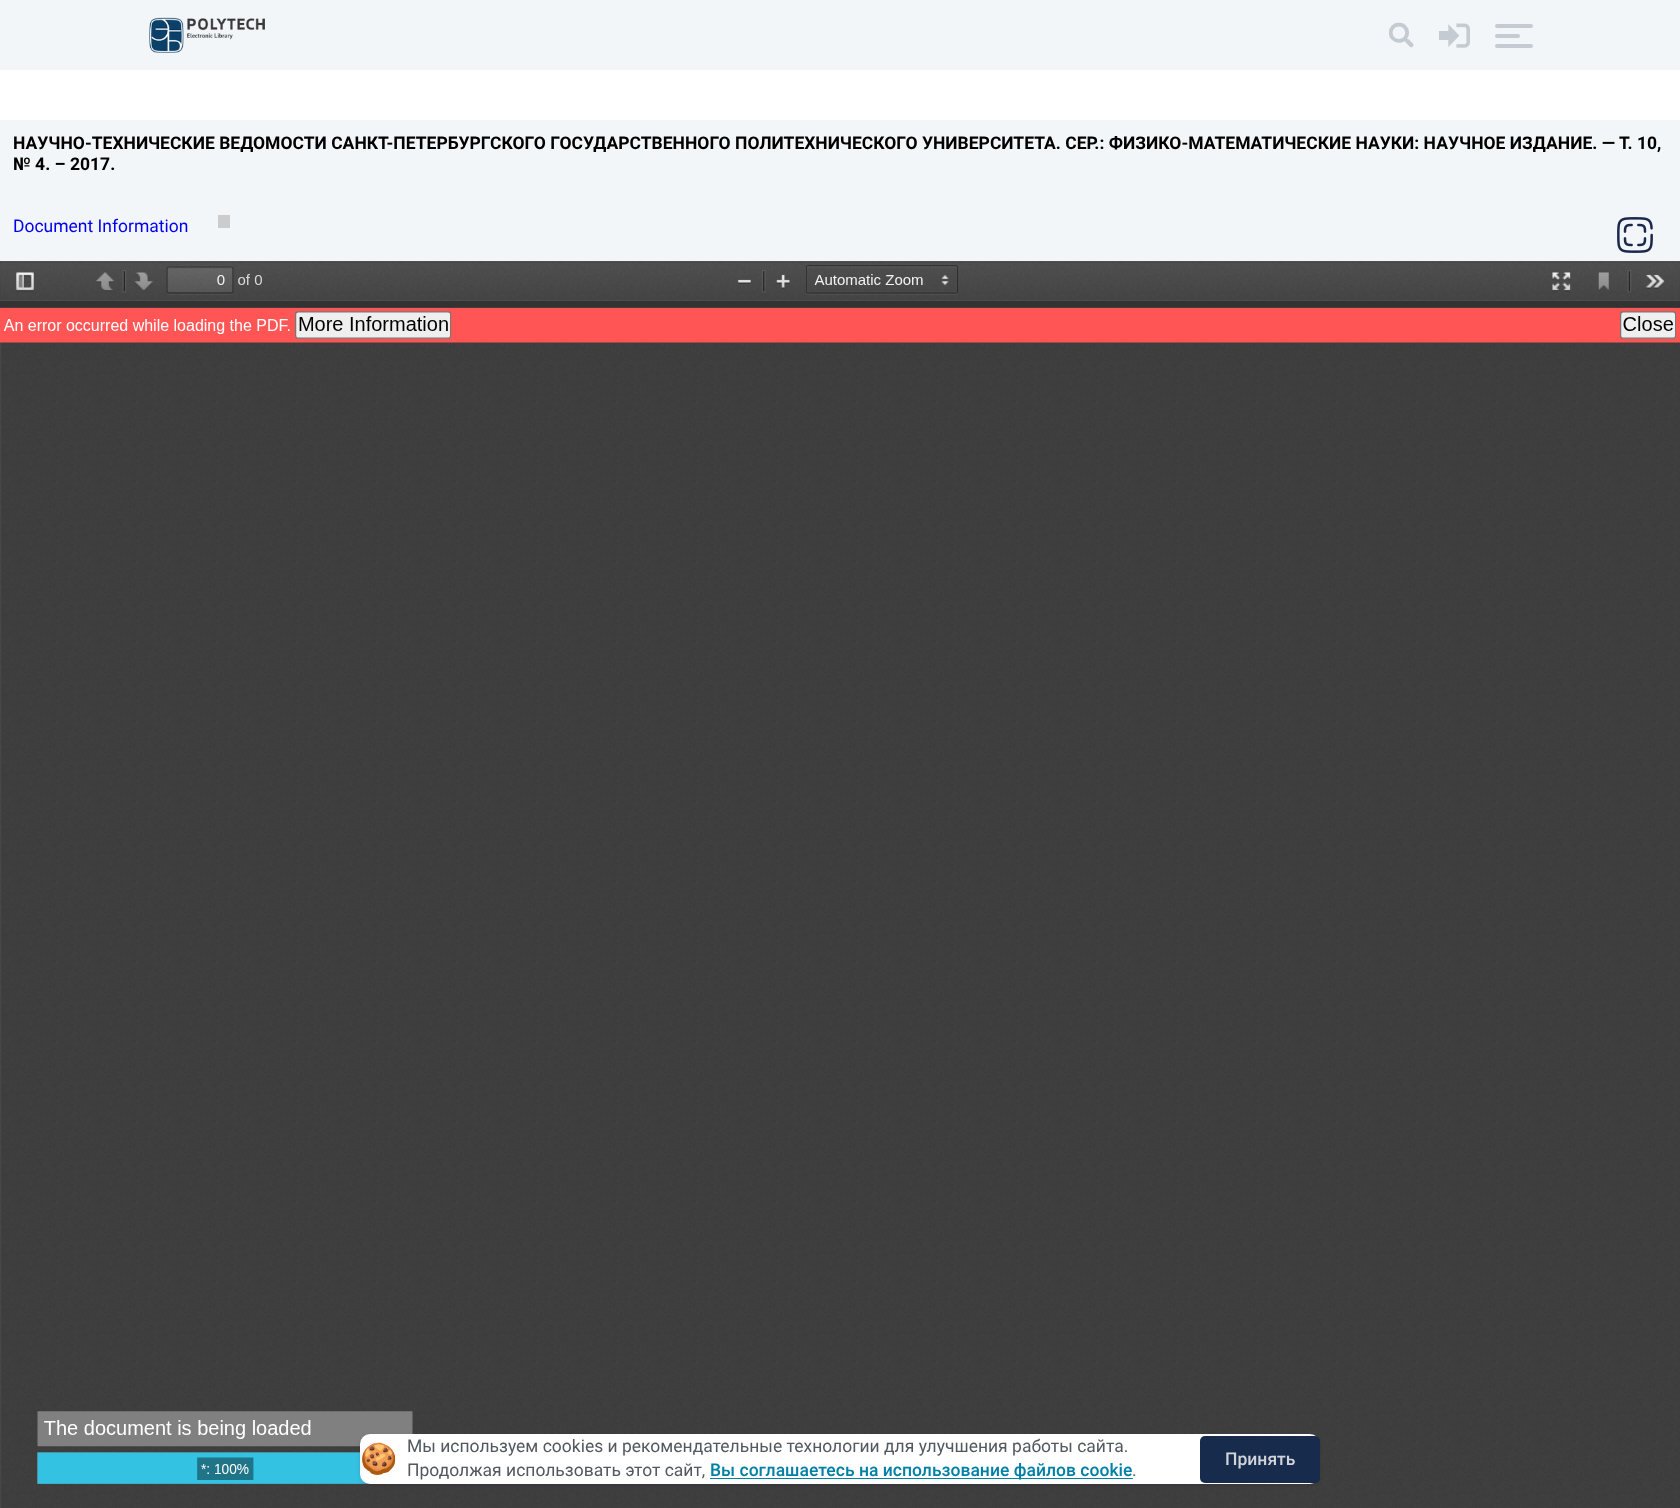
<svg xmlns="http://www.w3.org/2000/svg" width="1680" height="1508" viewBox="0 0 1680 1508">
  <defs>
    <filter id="blur1" x="-50%" y="-200%" width="200%" height="500%"><feGaussianBlur stdDeviation="1"/></filter>
    <filter id="blur2" x="-50%" y="-200%" width="200%" height="500%"><feGaussianBlur stdDeviation="2.5"/></filter>
  </defs>
  <rect width="100%" height="100%" fill="#f3f6f8"/>
  <image x="149" y="17" width="116" height="36" href="img1.png"/>
  <image x="1389" y="22" width="25" height="26" href="img2.png"/>
  <image x="1439" y="23" width="31" height="25" href="img3.png"/>
  <rect x="1495" y="24" width="38" height="4" rx="2" fill="#c4cbd2"/>
  <rect x="1495" y="34" width="25" height="4" rx="2" fill="#c4cbd2"/>
  <rect x="1495" y="44" width="38" height="4" rx="2" fill="#c4cbd2"/>
  <rect x="0" y="70" width="1680" height="50" fill="#ffffff"/>
  <text x="13" y="149" font-family="Roboto" font-size="17.5" font-weight="bold" fill="#000000">НАУЧНО-ТЕХНИЧЕСКИЕ ВЕДОМОСТИ САНКТ-ПЕТЕРБУРГСКОГО ГОСУДАРСТВЕННОГО ПОЛИТЕХНИЧЕСКОГО УНИВЕРСИТЕТА. СЕР.: ФИЗИКО-МАТЕМАТИЧЕСКИЕ НАУКИ: НАУЧНОЕ ИЗДАНИЕ. — Т. 10,</text>
  <text x="13" y="170" font-family="Roboto" font-size="17.5" font-weight="bold" fill="#000000">№ 4. – 2017.</text>
  <text x="13" y="232" font-family="Roboto" font-size="17.5" fill="#0000ee">Document Information</text>
  <rect x="218" y="215" width="12" height="13" fill="#cccccc"/>
  <image x="1617" y="217" width="36" height="36" href="img4.png"/>
  <image x="0" y="261" width="1680" height="1247" href="img5.png"/>
  <rect x="360" y="1435" width="960" height="50" rx="10" fill="#000000" fill-opacity="0.07" filter="url(#blur1)"/>
  <rect x="360" y="1436" width="960" height="50" rx="10" fill="#0a2540" fill-opacity="0.09" filter="url(#blur2)"/>
  <rect x="360" y="1434" width="960" height="50" rx="10" fill="#ffffff"/>
  <text x="360" y="1469" font-family="Noto Color Emoji" font-size="30" fill="#52585f">🍪</text>
  <text x="407" y="1452" font-family="Roboto" font-size="17.5" fill="#52585f">Мы используем cookies и рекомендательные технологии для улучшения работы сайта.</text>
  <text x="407" y="1476" font-family="Roboto" font-size="17.5" fill="#52585f">Продолжая использовать этот сайт,</text>
  <rect x="710" y="1478" width="423" height="1" fill="#0080a7"/>
  <text x="710" y="1476" font-family="Roboto" font-size="17.5" font-weight="500" fill="#0080a7">Вы соглашаетесь на использование файлов cookie</text>
  <text x="1132" y="1476" font-family="Roboto" font-size="17.5" fill="#52585f">.</text>
  <rect x="1200" y="1436" width="120" height="47" rx="5" fill="#172b4d"/>
  <text x="1225" y="1465" font-family="Roboto" font-size="17.5" font-weight="500" fill="#d1d5db">Принять</text>
</svg>
